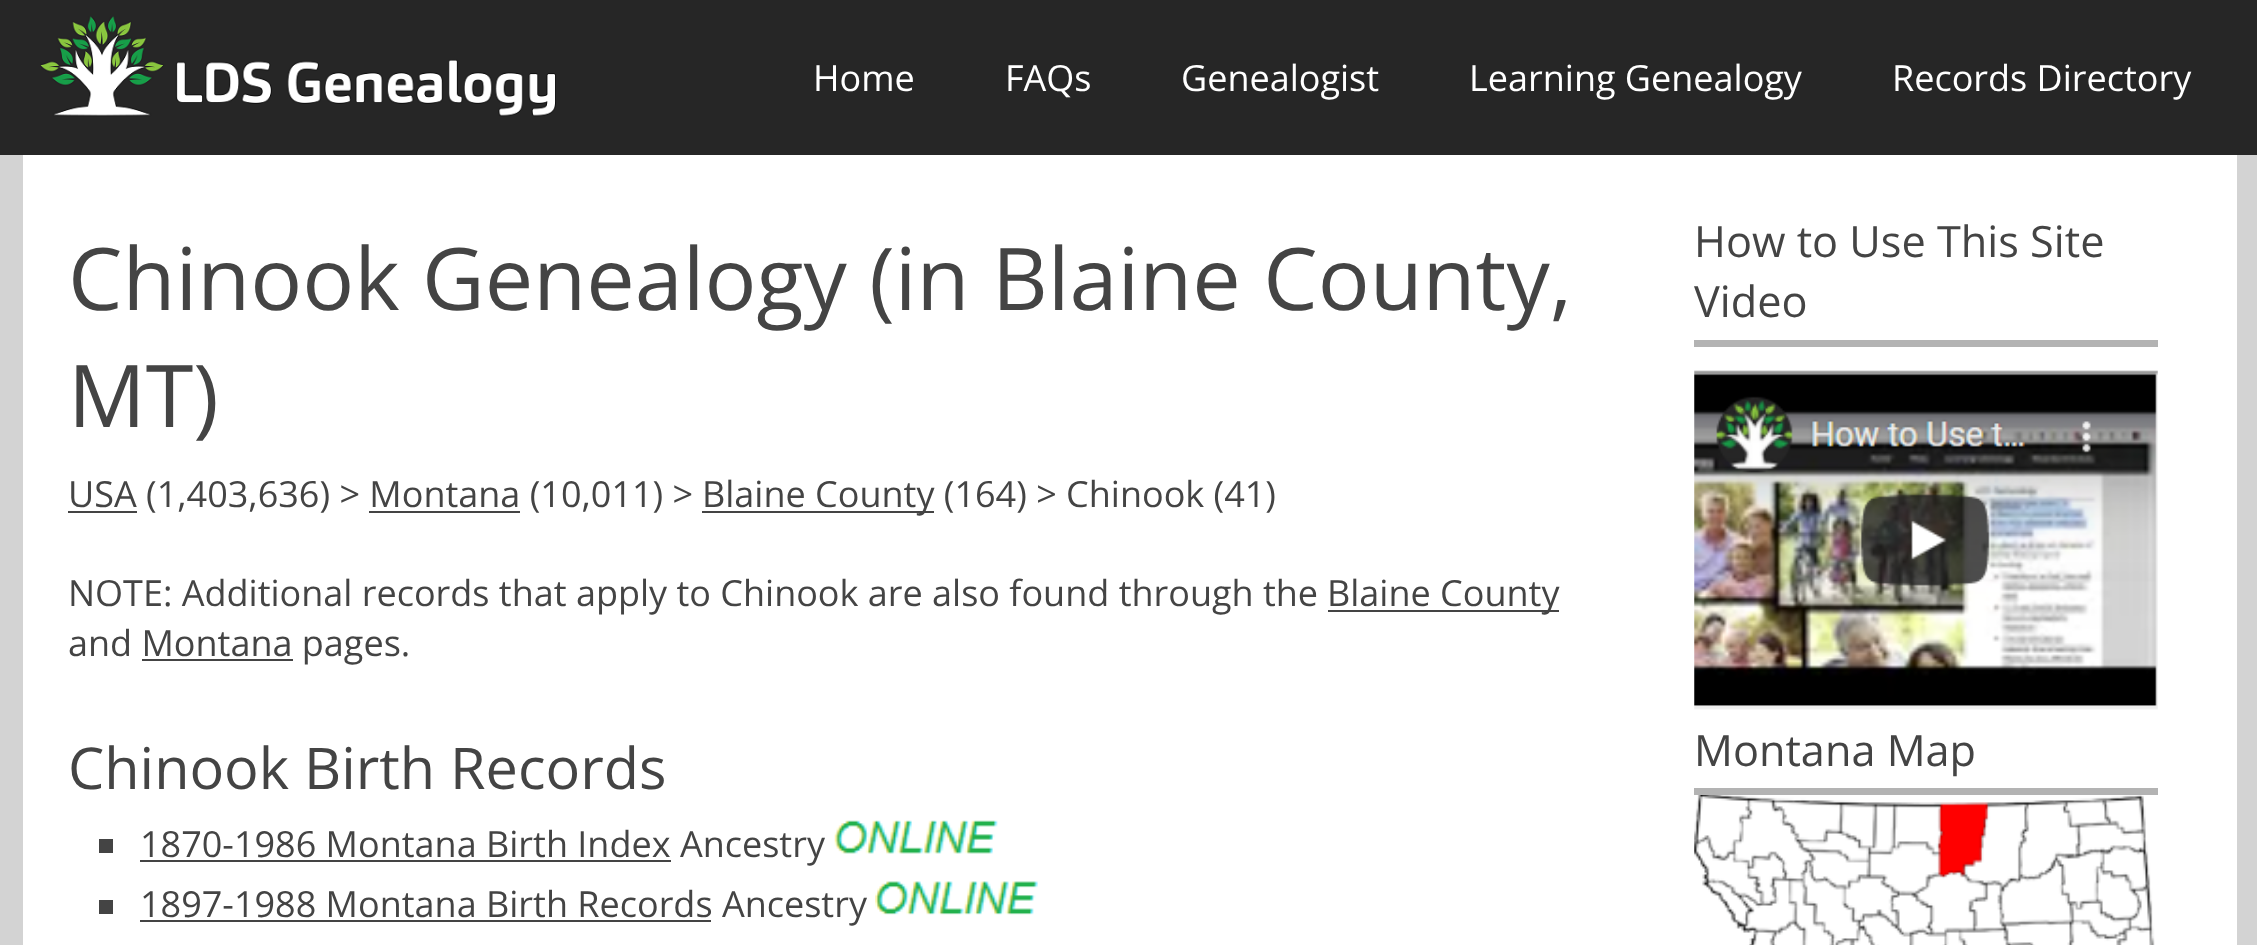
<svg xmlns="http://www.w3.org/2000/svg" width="2257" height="945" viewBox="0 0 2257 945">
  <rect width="100%" height="100%" fill="#d3d3d3"/>
  <rect x="0" y="0" width="2257" height="155" fill="#262626"/>
  <image x="40" y="16" width="516" height="101" href="img1.png"/>
  <text x="813" y="91" font-family="Open Sans" font-size="36" fill="#ffffff">Home</text>
  <text x="1005" y="91" font-family="Open Sans" font-size="36" fill="#ffffff">FAQs</text>
  <text x="1181" y="91" font-family="Open Sans" font-size="36" fill="#ffffff">Genealogist</text>
  <text x="1469" y="91" font-family="Open Sans" font-size="36" fill="#ffffff">Learning Genealogy</text>
  <text x="1892" y="91" font-family="Open Sans" font-size="36" fill="#ffffff">Records Directory</text>
  <rect x="23" y="155" width="2214" height="790" fill="#ffffff"/>
  <text x="68" y="310" font-family="Open Sans" font-size="86.4" fill="#444444">Chinook Genealogy (in Blaine County,</text>
  <text x="68" y="427" font-family="Open Sans" font-size="86.4" fill="#444444">MT)</text>
  <rect x="68" y="511" width="69" height="2" fill="#444444"/>
  <text x="68" y="507" font-family="Open Sans" font-size="36" fill="#444444">USA (1,403,636) &gt; Montana (10,011) &gt;</text>
  <rect x="702" y="511" width="232" height="2" fill="#444444"/>
  <text x="702" y="507" font-family="Open Sans" font-size="36" fill="#444444">Blaine County (164) &gt; Chinook (41)</text>
  <rect x="369" y="511" width="151" height="2" fill="#444444"/>
  <text x="68" y="606" font-family="Open Sans" font-size="36" fill="#444444">NOTE: Additional records that apply to Chinook are also found through the</text>
  <rect x="1328" y="610" width="231" height="2" fill="#444444"/>
  <text x="1327" y="606" font-family="Open Sans" font-size="36" fill="#444444">Blaine County</text>
  <text x="68" y="656" font-family="Open Sans" font-size="36" fill="#444444">and Montana pages.</text>
  <rect x="142" y="659" width="151" height="2" fill="#444444"/>
  <text x="68" y="789" font-family="Open Sans" font-size="57.6" fill="#444444">Chinook Birth Records</text>
  <rect x="99" y="839" width="14" height="14" fill="#444444"/>
  <rect x="140" y="860" width="531" height="2" fill="#444444"/>
  <text x="140" y="857" font-family="Open Sans" font-size="36" fill="#444444">1870-1986 Montana Birth Index Ancestry</text>
  <image x="834" y="820" width="164" height="34" href="img2.png"/>
  <rect x="99" y="900" width="14" height="14" fill="#444444"/>
  <rect x="140" y="920" width="571" height="2" fill="#444444"/>
  <text x="140" y="917" font-family="Open Sans" font-size="36" fill="#444444">1897-1988 Montana Birth Records Ancestry</text>
  <image x="875" y="881" width="163" height="34" href="img3.png"/>
  <text x="1694" y="257" font-family="Open Sans" font-size="43.25" fill="#444444">How to Use This Site</text>
  <text x="1694" y="317" font-family="Open Sans" font-size="43.25" fill="#444444">Video</text>
  <rect x="1694" y="340" width="464" height="7" fill="#b3b3b3"/>
  <image x="1694" y="370" width="464" height="340" href="img4.png"/>
  <text x="1694" y="766" font-family="Open Sans" font-size="43.25" fill="#444444">Montana Map</text>
  <rect x="1694" y="788" width="464" height="7" fill="#b3b3b3"/>
  <image x="1694" y="795" width="461" height="150" href="img5.png"/>
</svg>
